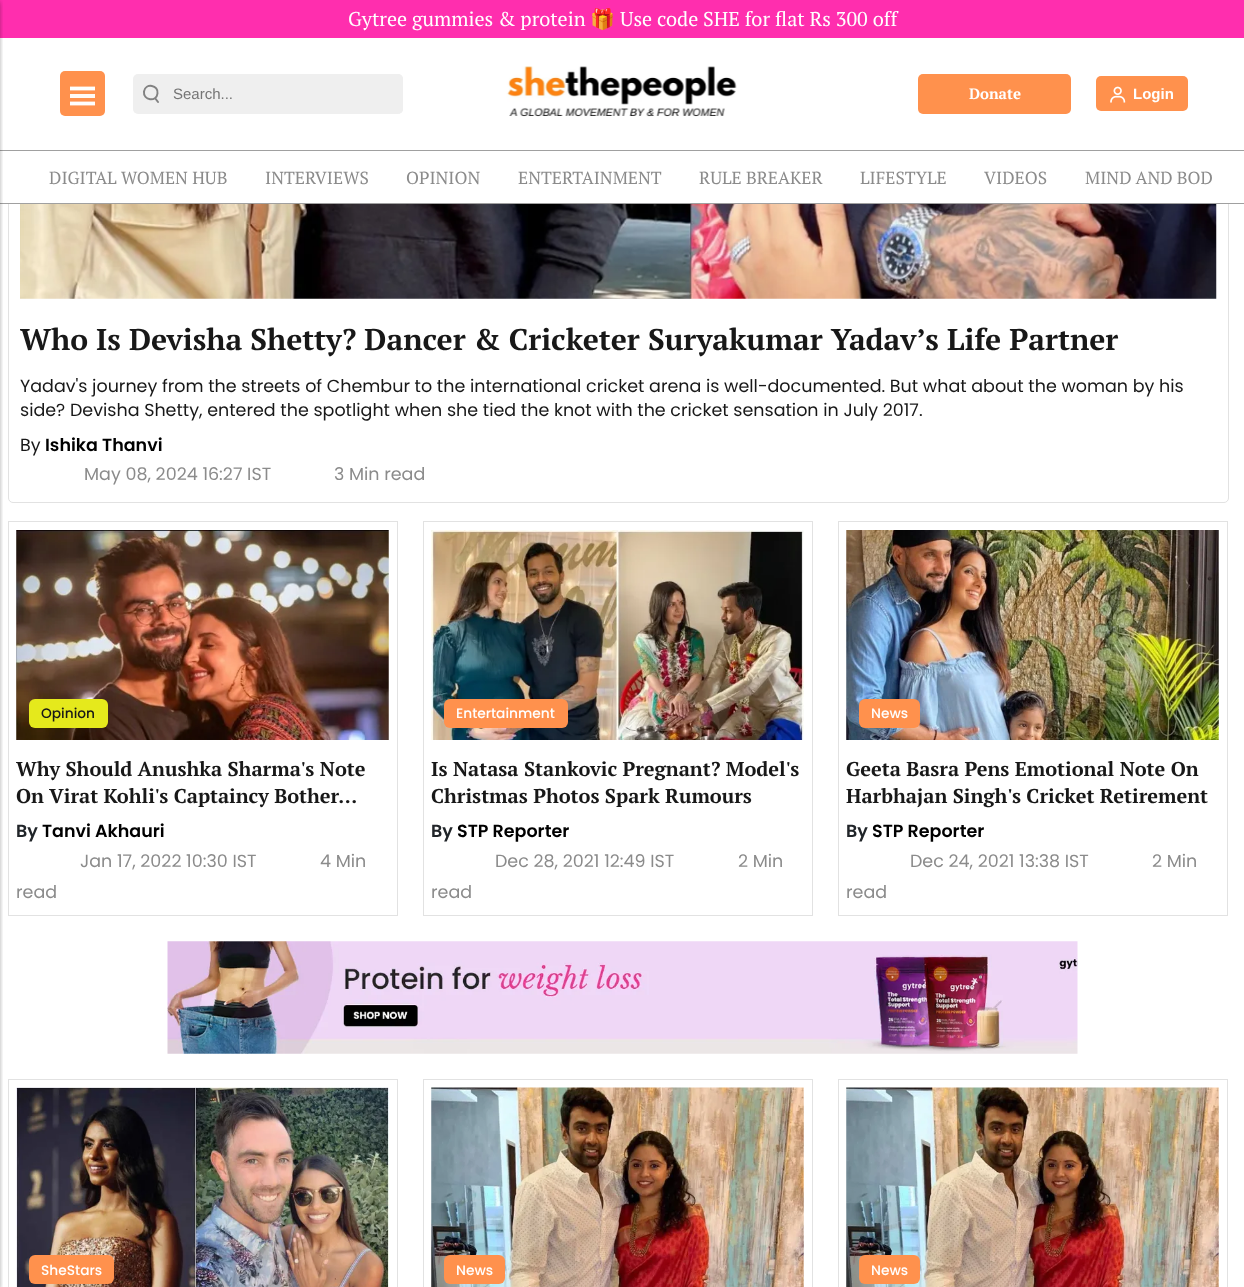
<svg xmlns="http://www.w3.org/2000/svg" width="1244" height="1287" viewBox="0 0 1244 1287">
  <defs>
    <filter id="blur1" x="-50%" y="-200%" width="200%" height="500%"><feGaussianBlur stdDeviation="2"/></filter>
  </defs>
  <rect width="100%" height="100%" fill="#ffffff"/>
  <rect x="8.5" y="-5.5" width="1220" height="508" rx="4.5" fill="none" stroke="#e2e2e2"/>
  <rect x="8" y="38" width="1221" height="165" fill="#ffffff"/>
  <rect x="0" y="0" width="1244" height="38" fill="#ff2eae"/>
  <text x="348" y="26" font-family="PT Serif" font-size="20" fill="#ffffff">Gytree gummies &amp; protein</text>
  <text x="590" y="26" font-family="Noto Color Emoji" font-size="20" fill="#ffffff">🎁</text>
  <text x="620" y="26" font-family="PT Serif" font-size="20" fill="#ffffff">Use code SHE for flat Rs 300 off</text>
  <rect x="0" y="150" width="1244" height="1" fill="#a0a0a0"/>
  <rect x="0" y="203" width="1244" height="1" fill="#a0a0a0"/>
  <rect x="-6" y="3" width="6" height="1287" fill="#000000" fill-opacity="0.22" filter="url(#blur1)"/>
  <rect x="-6" y="0" width="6" height="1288" fill="#000000" fill-opacity="0.12" filter="url(#blur1)"/>
  <rect x="60" y="71" width="45" height="45" rx="5" fill="#ff914d"/>
  <path d="M70 88.5H95" fill="none" stroke="#ffffff" stroke-width="3.8"/>
  <rect x="70" y="94" width="25" height="4" fill="#fffaf6"/>
  <path d="M70 103.5H95" fill="none" stroke="#ffffff" stroke-width="3.8"/>
  <rect x="133" y="74" width="270" height="40" rx="5" fill="#efefef"/>
  <path d="M157.5 93.5C156.5 102.5 143 100.5 144 91.5C145.5 82.5 159 85 157.5 93.5ZM158 102L155 98" fill="none" stroke="#828282" stroke-width="2" stroke-linecap="round" stroke-linejoin="round"/>
  <rect x="170" y="74" width="233" height="40" rx="5" fill="#efefef"/>
  <text x="173" y="99" font-family="Liberation Sans" font-size="15" fill="#757575">Search...</text>
  <image x="506" y="66" width="231" height="51" href="img1.png"/>
  <rect x="918" y="74" width="153" height="40" rx="5" fill="#ff914d"/>
  <text x="969" y="99" font-family="PT Serif" font-size="15" font-weight="bold" fill="#ffffff">Donate</text>
  <rect x="1096" y="76" width="92" height="35" rx="5" fill="#ff914d"/>
  <image x="1110" y="86" width="16" height="17" href="img2.png"/>
  <text x="1133" y="99" font-family="Liberation Sans" font-size="15" font-weight="bold" fill="#ffffff">Login</text>
  <text x="49" y="184" font-family="PT Serif" font-size="17.5" fill="#8b8b8b">DIGITAL WOMEN HUB</text>
  <text x="265" y="184" font-family="PT Serif" font-size="17.5" fill="#8b8b8b">INTERVIEWS</text>
  <text x="406" y="184" font-family="PT Serif" font-size="17.5" fill="#8b8b8b">OPINION</text>
  <text x="518" y="184" font-family="PT Serif" font-size="17.5" fill="#8b8b8b">ENTERTAINMENT</text>
  <text x="699" y="184" font-family="PT Serif" font-size="17.5" fill="#8b8b8b">RULE BREAKER</text>
  <text x="860" y="184" font-family="PT Serif" font-size="17.5" fill="#8b8b8b">LIFESTYLE</text>
  <text x="984" y="184" font-family="PT Serif" font-size="17.5" fill="#8b8b8b">VIDEOS</text>
  <text x="1085" y="184" font-family="PT Serif" font-size="17.5" fill="#8b8b8b">MIND AND BOD</text>
  <image x="20" y="204" width="1197" height="95" href="img3.png"/>
  <text x="20" y="350" font-family="PT Serif" font-size="30" font-weight="bold" fill="#181818">Who Is Devisha Shetty? Dancer &amp; Cricketer Suryakumar Yadav’s Life Partner</text>
  <text x="20" y="392" font-family="Poppins" font-size="17.5" fill="#181818">Yadav's journey from the streets of Chembur to the international cricket arena is well-documented. But what about the woman by his</text>
  <text x="20" y="416" font-family="Poppins" font-size="17.5" fill="#181818">side? Devisha Shetty, entered the spotlight when she tied the knot with the cricket sensation in July 2017.</text>
  <text x="20" y="451" font-family="Poppins" font-size="17.5" fill="#181818">By</text>
  <text x="45" y="451" font-family="Poppins" font-size="17.5" font-weight="600" fill="#000000">Ishika Thanvi</text>
  <text x="84" y="480" font-family="Poppins" font-size="17.5" fill="#8b8b8b">May 08, 2024 16:27 IST</text>
  <text x="334" y="480" font-family="Poppins" font-size="17.5" fill="#8b8b8b">3 Min read</text>
  <rect x="8.5" y="521.5" width="389" height="394" fill="none" stroke="#e2e2e2"/>
  <image x="16" y="530" width="373" height="210" href="img4.png"/>
  <rect x="29" y="699" width="79" height="29" rx="6" fill="#e5e91c"/>
  <text x="41" y="718" font-family="Poppins" font-size="13.75" font-weight="500" fill="#181818">Opinion</text>
  <text x="16" y="776" font-family="PT Serif" font-size="20" font-weight="bold" fill="#181818">Why Should Anushka Sharma's Note</text>
  <text x="16" y="803" font-family="PT Serif" font-size="20" font-weight="bold" fill="#181818">On Virat Kohli's Captaincy Bother…</text>
  <text x="16" y="837" font-family="Poppins" font-size="17.5" font-weight="600" fill="#212529">By</text>
  <text x="42" y="837" font-family="Poppins" font-size="17.5" font-weight="600" fill="#000000">Tanvi Akhauri</text>
  <text x="80" y="867" font-family="Poppins" font-size="17.5" fill="#8b8b8b">Jan 17, 2022 10:30 IST</text>
  <text x="320" y="867" font-family="Poppins" font-size="17.5" fill="#8b8b8b">4 Min</text>
  <text x="16" y="898" font-family="Poppins" font-size="17.5" fill="#8b8b8b">read</text>
  <rect x="423.5" y="521.5" width="389" height="394" fill="none" stroke="#e2e2e2"/>
  <image x="431" y="530" width="373" height="210" href="img5.png"/>
  <rect x="444" y="699" width="124" height="29" rx="6" fill="#ff914d"/>
  <text x="456" y="718" font-family="Poppins" font-size="13.75" font-weight="500" fill="#ffffff">Entertainment</text>
  <text x="431" y="776" font-family="PT Serif" font-size="20" font-weight="bold" fill="#181818">Is Natasa Stankovic Pregnant? Model's</text>
  <text x="431" y="803" font-family="PT Serif" font-size="20" font-weight="bold" fill="#181818">Christmas Photos Spark Rumours</text>
  <text x="431" y="837" font-family="Poppins" font-size="17.5" font-weight="600" fill="#212529">By</text>
  <text x="457" y="837" font-family="Poppins" font-size="17.5" font-weight="600" fill="#000000">STP Reporter</text>
  <text x="495" y="867" font-family="Poppins" font-size="17.5" fill="#8b8b8b">Dec 28, 2021 12:49 IST</text>
  <text x="738" y="867" font-family="Poppins" font-size="17.5" fill="#8b8b8b">2 Min</text>
  <text x="431" y="898" font-family="Poppins" font-size="17.5" fill="#8b8b8b">read</text>
  <rect x="838.5" y="521.5" width="389" height="394" fill="none" stroke="#e2e2e2"/>
  <image x="846" y="530" width="373" height="210" href="img6.png"/>
  <rect x="859" y="699" width="61" height="29" rx="6" fill="#ff914d"/>
  <text x="871" y="718" font-family="Poppins" font-size="13.75" font-weight="500" fill="#ffffff">News</text>
  <text x="846" y="776" font-family="PT Serif" font-size="20" font-weight="bold" fill="#181818">Geeta Basra Pens Emotional Note On</text>
  <text x="846" y="803" font-family="PT Serif" font-size="20" font-weight="bold" fill="#181818">Harbhajan Singh's Cricket Retirement</text>
  <text x="846" y="837" font-family="Poppins" font-size="17.5" font-weight="600" fill="#212529">By</text>
  <text x="872" y="837" font-family="Poppins" font-size="17.5" font-weight="600" fill="#000000">STP Reporter</text>
  <text x="910" y="867" font-family="Poppins" font-size="17.5" fill="#8b8b8b">Dec 24, 2021 13:38 IST</text>
  <text x="1152" y="867" font-family="Poppins" font-size="17.5" fill="#8b8b8b">2 Min</text>
  <text x="846" y="898" font-family="Poppins" font-size="17.5" fill="#8b8b8b">read</text>
  <image x="167" y="941" width="911" height="113" href="img7.png"/>
  <rect x="8.5" y="1079.5" width="389" height="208" fill="none" stroke="#e2e2e2"/>
  <image x="16" y="1087" width="373" height="200" href="img8.png"/>
  <rect x="29" y="1255" width="85" height="29" rx="6" fill="#ff914d"/>
  <text x="41" y="1275" font-family="Poppins" font-size="13.75" font-weight="500" fill="#ffffff">SheStars</text>
  <rect x="423.5" y="1079.5" width="389" height="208" fill="none" stroke="#e2e2e2"/>
  <image x="431" y="1087" width="373" height="200" href="img9.png"/>
  <rect x="444" y="1255" width="61" height="29" rx="6" fill="#ff914d"/>
  <text x="456" y="1275" font-family="Poppins" font-size="13.75" font-weight="500" fill="#ffffff">News</text>
  <rect x="838.5" y="1079.5" width="389" height="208" fill="none" stroke="#e2e2e2"/>
  <image x="846" y="1087" width="373" height="200" href="img10.png"/>
  <rect x="859" y="1255" width="61" height="29" rx="6" fill="#ff914d"/>
  <text x="871" y="1275" font-family="Poppins" font-size="13.75" font-weight="500" fill="#ffffff">News</text>
</svg>
